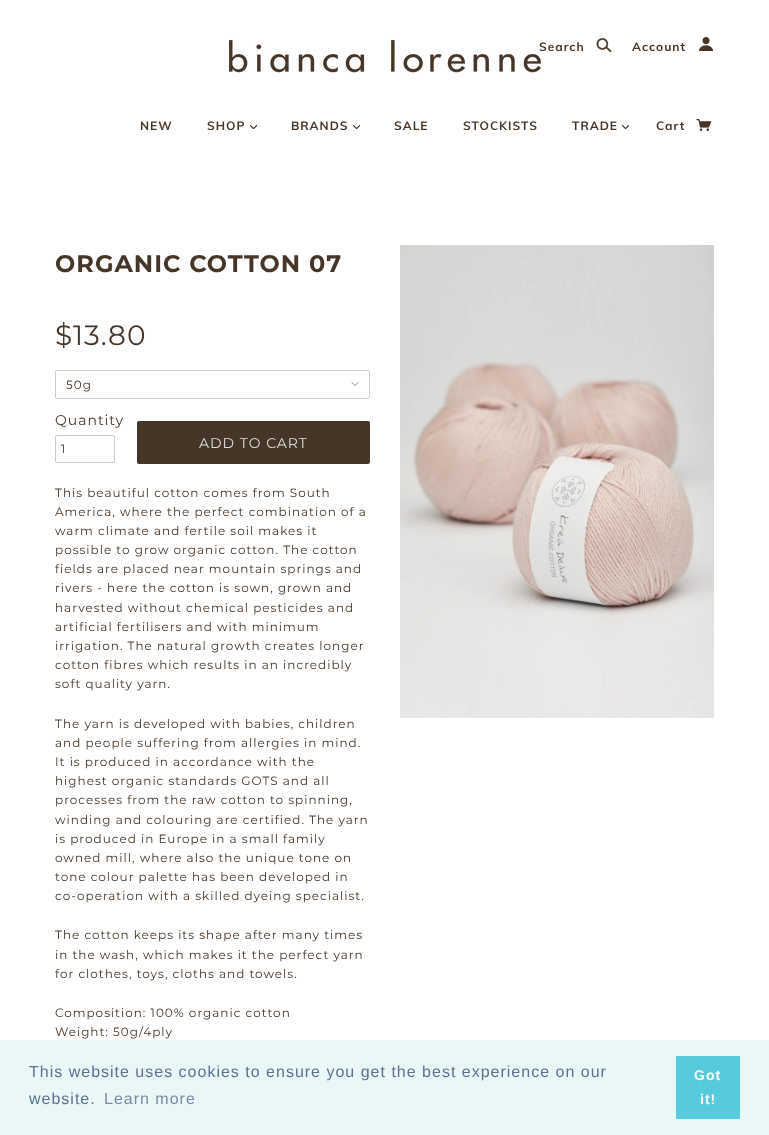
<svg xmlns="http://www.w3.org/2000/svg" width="769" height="1135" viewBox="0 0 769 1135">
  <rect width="100%" height="100%" fill="#ffffff"/>
  <image x="228" y="39" width="314" height="34" href="img1.png"/>
  <text x="539" y="51" font-family="Muli" font-size="12" font-weight="bold" letter-spacing="1" fill="#463628">Search</text>
  <image x="596" y="38" width="16" height="14" href="img2.png"/>
  <text x="632" y="51" font-family="Muli" font-size="12" font-weight="bold" letter-spacing="1" fill="#463628">Account</text>
  <image x="698" y="37" width="16" height="14" href="img3.png"/>
  <text x="140" y="130" font-family="Muli" font-size="12" font-weight="bold" letter-spacing="1" fill="#463628">NEW</text>
  <text x="207" y="130" font-family="Muli" font-size="12" font-weight="bold" letter-spacing="1" fill="#463628">SHOP</text>
  <image x="250" y="125" width="7" height="4" href="img4.png"/>
  <text x="291" y="130" font-family="Muli" font-size="12" font-weight="bold" letter-spacing="1" fill="#463628">BRANDS</text>
  <image x="353" y="125" width="7" height="4" href="img4.png"/>
  <text x="394" y="130" font-family="Muli" font-size="12" font-weight="bold" letter-spacing="1" fill="#463628">SALE</text>
  <text x="463" y="130" font-family="Muli" font-size="12" font-weight="bold" letter-spacing="1" fill="#463628">STOCKISTS</text>
  <text x="572" y="130" font-family="Muli" font-size="12" font-weight="bold" letter-spacing="1" fill="#463628">TRADE</text>
  <image x="622" y="125" width="7" height="4" href="img4.png"/>
  <text x="656" y="130" font-family="Muli" font-size="12" font-weight="bold" letter-spacing="1" fill="#463628">Cart</text>
  <image x="696" y="119" width="16" height="12" href="img5.png"/>
  <text x="55" y="272" font-family="Montserrat" font-size="24" font-weight="bold" letter-spacing="1" fill="#463628">ORGANIC COTTON 07</text>
  <text x="55" y="345" font-family="Montserrat" font-size="28" letter-spacing="1" fill="#463628">$13.80</text>
  <image x="351" y="382" width="8" height="4" href="img6.png"/>
  <rect x="55.5" y="370.5" width="314" height="28" rx="1.5" fill="none" stroke="#cccccc"/>
  <text x="66" y="389" font-family="Montserrat" font-size="12" letter-spacing="1" fill="#463628">50g</text>
  <text x="55" y="425" font-family="Montserrat" font-size="14" letter-spacing="1" fill="#463628">Quantity</text>
  <rect x="55.5" y="435.5" width="59" height="27" rx="1.5" fill="none" stroke="#cccccc"/>
  <text x="61" y="453" font-family="Montserrat" font-size="12" letter-spacing="1" fill="#463628">1</text>
  <rect x="137" y="421" width="233" height="43" rx="2" fill="#463628"/>
  <text x="199" y="448" font-family="Montserrat" font-size="14" letter-spacing="1" fill="#dfdfdf">ADD TO CART</text>
  <text x="55" y="497" font-family="Montserrat" font-size="12" letter-spacing="1" fill="#463628">This beautiful cotton comes from South</text>
  <text x="55" y="516" font-family="Montserrat" font-size="12" letter-spacing="1" fill="#463628">America, where the perfect combination of a</text>
  <text x="55" y="535" font-family="Montserrat" font-size="12" letter-spacing="1" fill="#463628">warm climate and fertile soil makes it</text>
  <text x="55" y="554" font-family="Montserrat" font-size="12" letter-spacing="1" fill="#463628">possible to grow organic cotton. The cotton</text>
  <text x="55" y="573" font-family="Montserrat" font-size="12" letter-spacing="1" fill="#463628">fields are placed near mountain springs and</text>
  <text x="55" y="592" font-family="Montserrat" font-size="12" letter-spacing="1" fill="#463628">rivers - here the cotton is sown, grown and</text>
  <text x="55" y="612" font-family="Montserrat" font-size="12" letter-spacing="1" fill="#463628">harvested without chemical pesticides and</text>
  <text x="55" y="631" font-family="Montserrat" font-size="12" letter-spacing="1" fill="#463628">artificial fertilisers and with minimum</text>
  <text x="55" y="650" font-family="Montserrat" font-size="12" letter-spacing="1" fill="#463628">irrigation. The natural growth creates longer</text>
  <text x="55" y="669" font-family="Montserrat" font-size="12" letter-spacing="1" fill="#463628">cotton fibres which results in an incredibly</text>
  <text x="55" y="688" font-family="Montserrat" font-size="12" letter-spacing="1" fill="#463628">soft quality yarn.</text>
  <text x="55" y="728" font-family="Montserrat" font-size="12" letter-spacing="1" fill="#463628">The yarn is developed with babies, children</text>
  <text x="55" y="747" font-family="Montserrat" font-size="12" letter-spacing="1" fill="#463628">and people suffering from allergies in mind.</text>
  <text x="55" y="766" font-family="Montserrat" font-size="12" letter-spacing="1" fill="#463628">It is produced in accordance with the</text>
  <text x="55" y="785" font-family="Montserrat" font-size="12" letter-spacing="1" fill="#463628">highest organic standards GOTS and all</text>
  <text x="55" y="804" font-family="Montserrat" font-size="12" letter-spacing="1" fill="#463628">processes from the raw cotton to spinning,</text>
  <text x="55" y="824" font-family="Montserrat" font-size="12" letter-spacing="1" fill="#463628">winding and colouring are certified. The yarn</text>
  <text x="55" y="843" font-family="Montserrat" font-size="12" letter-spacing="1" fill="#463628">is produced in Europe in a small family</text>
  <text x="55" y="862" font-family="Montserrat" font-size="12" letter-spacing="1" fill="#463628">owned mill, where also the unique tone on</text>
  <text x="55" y="881" font-family="Montserrat" font-size="12" letter-spacing="1" fill="#463628">tone colour palette has been developed in</text>
  <text x="55" y="900" font-family="Montserrat" font-size="12" letter-spacing="1" fill="#463628">co-operation with a skilled dyeing specialist.</text>
  <text x="55" y="939" font-family="Montserrat" font-size="12" letter-spacing="1" fill="#463628">The cotton keeps its shape after many times</text>
  <text x="55" y="959" font-family="Montserrat" font-size="12" letter-spacing="1" fill="#463628">in the wash, which makes it the perfect yarn</text>
  <text x="55" y="978" font-family="Montserrat" font-size="12" letter-spacing="1" fill="#463628">for clothes, toys, cloths and towels.</text>
  <text x="55" y="1017" font-family="Montserrat" font-size="12" letter-spacing="1" fill="#463628">Composition: 100% organic cotton</text>
  <text x="55" y="1036" font-family="Montserrat" font-size="12" letter-spacing="1" fill="#463628">Weight: 50g/4ply</text>
  <image x="400" y="245" width="314" height="473" href="img7.png"/>
  <rect x="0" y="1040" width="769" height="95" fill="#eaf7f7"/>
  <text x="29" y="1077" font-family="Liberation Sans" font-size="16" letter-spacing="1" fill="#5c7291">This website uses cookies to ensure you get the best experience on our</text>
  <text x="29" y="1104" font-family="Liberation Sans" font-size="16" letter-spacing="1" fill="#5c7291">website.</text>
  <text x="104" y="1104" font-family="Liberation Sans" font-size="16" letter-spacing="1" fill="#788da5">Learn more</text>
  <rect x="676" y="1056" width="64" height="63" fill="#56cbdb"/>
  <text x="694" y="1080" font-family="Liberation Sans" font-size="14" font-weight="bold" letter-spacing="1" fill="#ffffff">Got</text>
  <text x="700" y="1104" font-family="Liberation Sans" font-size="14" font-weight="bold" letter-spacing="1" fill="#ffffff">it!</text>
</svg>
